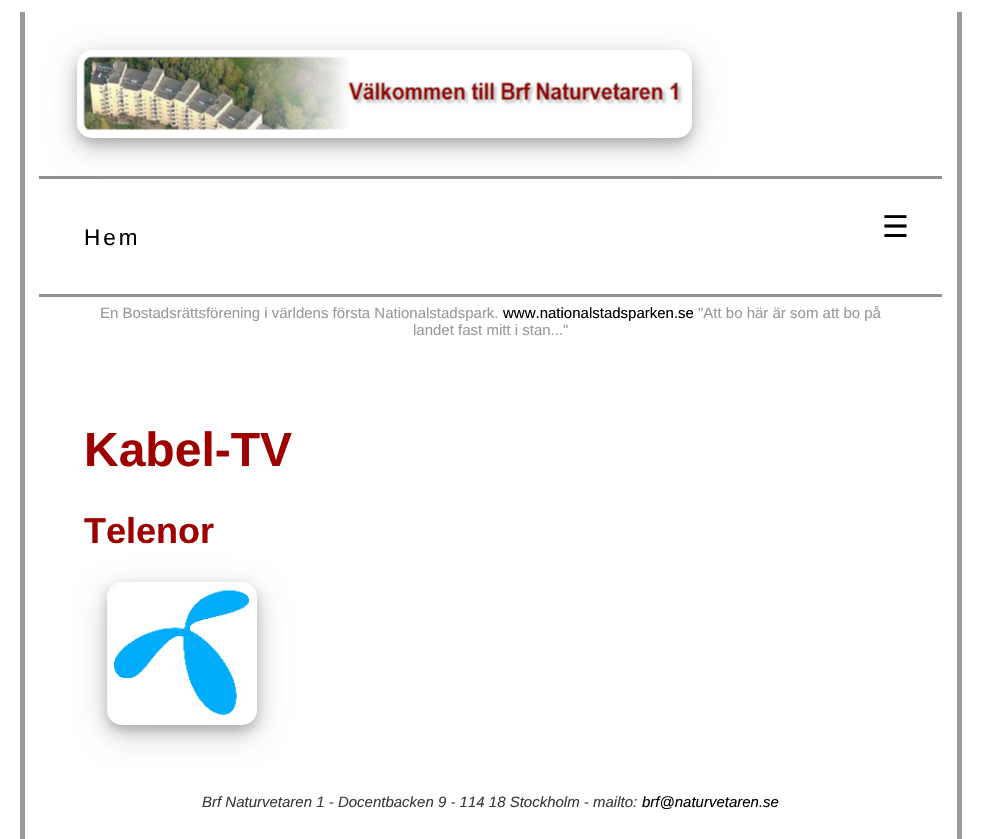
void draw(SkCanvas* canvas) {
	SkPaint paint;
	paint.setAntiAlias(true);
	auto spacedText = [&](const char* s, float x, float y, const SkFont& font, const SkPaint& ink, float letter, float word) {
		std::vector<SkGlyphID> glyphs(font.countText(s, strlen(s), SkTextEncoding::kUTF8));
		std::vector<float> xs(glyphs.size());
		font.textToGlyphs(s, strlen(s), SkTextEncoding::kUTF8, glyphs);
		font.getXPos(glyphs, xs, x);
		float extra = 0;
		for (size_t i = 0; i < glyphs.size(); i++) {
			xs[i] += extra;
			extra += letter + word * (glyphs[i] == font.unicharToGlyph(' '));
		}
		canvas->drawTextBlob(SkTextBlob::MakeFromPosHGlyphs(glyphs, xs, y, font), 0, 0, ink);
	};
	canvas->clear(0xffffffff);
	paint.setColor(0xff999999);
	canvas->drawRect(SkRect::MakeXYWH(957, 12, 5, 827), paint);
	canvas->drawRect(SkRect::MakeXYWH(20, 12, 5, 827), paint);
	paint.setColor(0x30000000);
	paint.setMaskFilter(SkMaskFilter::MakeBlur(kNormal_SkBlurStyle, 15));
	canvas->drawRoundRect(SkRect::MakeXYWH(77, 59, 615, 88), 15, 15, paint);
	paint.setMaskFilter(nullptr);
	paint.setColor(0x33000000);
	paint.setMaskFilter(SkMaskFilter::MakeBlur(kNormal_SkBlurStyle, 6));
	canvas->drawRoundRect(SkRect::MakeXYWH(77, 56, 615, 88), 15, 15, paint);
	paint.setMaskFilter(nullptr);
	paint.setColor(0xffffffff);
	canvas->drawRoundRect(SkRect::MakeXYWH(77, 50, 615, 88), 15, 15, paint);
	canvas->drawImageRect(SkImages::DeferredFromEncodedData(SkData::MakeFromFileName("img1.png")), SkRect::MakeXYWH(83, 56, 600, 75), SkSamplingOptions());
	paint.setColor(0xff909090);
	canvas->drawRect(SkRect::MakeXYWH(39, 176, 903, 3), paint);
	canvas->drawRect(SkRect::MakeXYWH(39, 294, 903, 3), paint);
	SkFont f1(fontMgr->matchFamilyStyle("Liberation Sans", SkFontStyle::Normal()), 22.5);
	f1.setSubpixel(true);
	paint.setColor(0xff000000);
	spacedText("Hem", 84, 245, f1, paint, 3, 0);
	SkFont f2(fontMgr->matchFamilyStyle("DejaVu Sans", SkFontStyle::Normal()), 30);
	f2.setSubpixel(true);
	spacedText("☰", 882, 237, f2, paint, 3, 0);
	SkFont f3(fontMgr->matchFamilyStyle("Liberation Sans", SkFontStyle::Normal()), 15);
	f3.setSubpixel(true);
	paint.setColor(0xff999999);
	canvas->drawString("En Bostadsrättsförening i världens första Nationalstadspark.", 100, 318, f3, paint);
	paint.setColor(0xff000000);
	canvas->drawString("www.nationalstadsparken.se", 503, 318, f3, paint);
	paint.setColor(0xff999999);
	canvas->drawString("\"Att bo här är som att bo på", 698, 318, f3, paint);
	canvas->drawString("landet fast mitt i stan...\"", 413, 335, f3, paint);
	SkFont f4(fontMgr->matchFamilyStyle("Liberation Sans", SkFontStyle::Bold()), 48);
	f4.setSubpixel(true);
	paint.setColor(0xff9e0000);
	canvas->drawString("Kabel-TV", 84, 466, f4, paint);
	SkFont f5(fontMgr->matchFamilyStyle("Liberation Sans", SkFontStyle::Bold()), 36);
	f5.setSubpixel(true);
	canvas->drawString("Telenor", 84, 543, f5, paint);
	paint.setColor(0x30000000);
	paint.setMaskFilter(SkMaskFilter::MakeBlur(kNormal_SkBlurStyle, 15));
	canvas->drawRoundRect(SkRect::MakeXYWH(107, 591, 150, 143), 15, 15, paint);
	paint.setMaskFilter(nullptr);
	paint.setColor(0x33000000);
	paint.setMaskFilter(SkMaskFilter::MakeBlur(kNormal_SkBlurStyle, 6));
	canvas->drawRoundRect(SkRect::MakeXYWH(107, 588, 150, 143), 15, 15, paint);
	paint.setMaskFilter(nullptr);
	paint.setColor(0xffffffff);
	canvas->drawRoundRect(SkRect::MakeXYWH(107, 582, 150, 143), 15, 15, paint);
	canvas->drawImageRect(SkImages::DeferredFromEncodedData(SkData::MakeFromFileName("img2.png")), SkRect::MakeXYWH(114, 590, 135, 126), SkSamplingOptions());
	SkFont f6(fontMgr->matchFamilyStyle("Liberation Sans", SkFontStyle::Italic()), 15);
	f6.setSubpixel(true);
	paint.setColor(0xff3b3b3b);
	canvas->drawString("Brf Naturvetaren 1 - Docentbacken 9 - 114 18 Stockholm - mailto:", 202, 807, f6, paint);
	paint.setColor(0xff000000);
	canvas->drawString("brf@naturvetaren.se", 642, 807, f6, paint);
}
